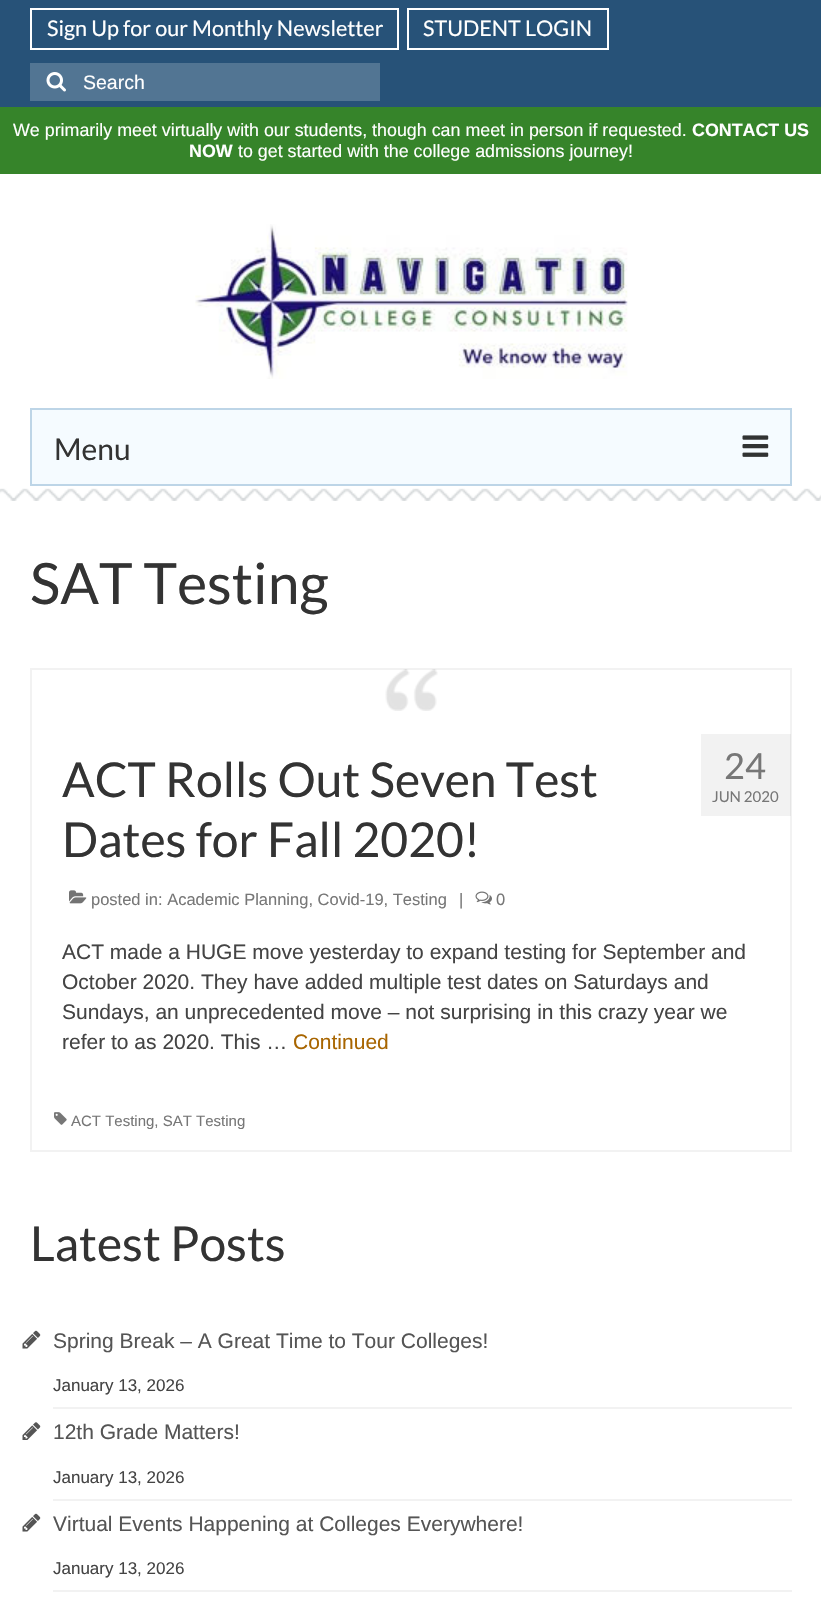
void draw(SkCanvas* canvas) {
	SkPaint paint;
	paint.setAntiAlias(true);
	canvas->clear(0xffffffff);
	canvas->drawImageRect(SkImages::DeferredFromEncodedData(SkData::MakeFromFileName("img1.png")), SkRect::MakeXYWH(0, 488, 821, 13), SkSamplingOptions());
	paint.setColor(0xff275278);
	canvas->drawRect(SkRect::MakeXYWH(0, 0, 821, 107), paint);
	paint.setStroke(true);
	paint.setStrokeWidth(2);
	paint.setColor(0xffffffff);
	canvas->drawRect(SkRect::MakeXYWH(31, 9, 367, 40), paint);
	SkFont f1(fontMgr->matchFamilyStyle("Lato", SkFontStyle::Normal()), 21.6);
	f1.setSubpixel(true);
	paint.setStroke(false);
	canvas->drawString("Sign Up for our Monthly Newsletter", 47, 36, f1, paint);
	paint.setStroke(true);
	canvas->drawRect(SkRect::MakeXYWH(408, 9, 200, 40), paint);
	paint.setStroke(false);
	canvas->drawString("STUDENT LOGIN", 423, 36, f1, paint);
	paint.setColor(0xff527593);
	canvas->drawRect(SkRect::MakeXYWH(30, 63, 350, 38), paint);
	canvas->drawImageRect(SkImages::DeferredFromEncodedData(SkData::MakeFromFileName("img2.png")), SkRect::MakeXYWH(46, 72, 20, 20), SkSamplingOptions());
	SkFont f2(fontMgr->matchFamilyStyle("Liberation Sans", SkFontStyle::Normal()), 19.5);
	f2.setSubpixel(true);
	paint.setColor(0xffffffff);
	canvas->drawString("Search", 83, 89, f2, paint);
	paint.setColor(0xff36842a);
	canvas->drawRect(SkRect::MakeXYWH(0, 107, 821, 67), paint);
	SkFont f3(fontMgr->matchFamilyStyle("Liberation Sans", SkFontStyle::Normal()), 17.85);
	f3.setSubpixel(true);
	paint.setColor(0xffffffff);
	canvas->drawString("We primarily meet virtually with our students, though can meet in person if requested.", 13, 136, f3, paint);
	SkFont f4(fontMgr->matchFamilyStyle("Liberation Sans", SkFontStyle::Bold()), 17.85);
	f4.setSubpixel(true);
	canvas->drawString("CONTACT US", 692, 136, f4, paint);
	canvas->drawString("NOW", 189, 157, f4, paint);
	canvas->drawString("to get started with the college admissions journey!", 238, 157, f3, paint);
	canvas->drawImageRect(SkImages::DeferredFromEncodedData(SkData::MakeFromFileName("img3.png")), SkRect::MakeXYWH(195, 224, 433, 155), SkSamplingOptions());
	paint.setColor(0xfff5fbff);
	canvas->drawRect(SkRect::MakeXYWH(31, 409, 760, 76), paint);
	paint.setStroke(true);
	paint.setColor(0xffbdd5e7);
	canvas->drawRect(SkRect::MakeXYWH(31, 409, 760, 76), paint);
	SkFont f5(fontMgr->matchFamilyStyle("Lato", SkFontStyle::Normal()), 30);
	f5.setSubpixel(true);
	paint.setStroke(false);
	paint.setColor(0xff333333);
	canvas->drawString("Menu", 54, 460, f5, paint);
	canvas->drawImageRect(SkImages::DeferredFromEncodedData(SkData::MakeFromFileName("img4.png")), SkRect::MakeXYWH(742, 435, 27, 22), SkSamplingOptions());
	SkFont f6(fontMgr->matchFamilyStyle("Lato", SkFontStyle::Normal()), 57);
	f6.setSubpixel(true);
	canvas->drawString("SAT Testing", 30, 604, f6, paint);
	paint.setStroke(true);
	paint.setColor(0xfff2f2f2);
	canvas->drawRect(SkRect::MakeXYWH(31, 669, 760, 482), paint);
	canvas->drawImageRect(SkImages::DeferredFromEncodedData(SkData::MakeFromFileName("img5.png")), SkRect::MakeXYWH(385, 669, 53, 42), SkSamplingOptions());
	SkFont f7(fontMgr->matchFamilyStyle("Lato", SkFontStyle::Normal()), 48);
	f7.setSubpixel(true);
	paint.setStroke(false);
	paint.setColor(0xff333333);
	canvas->drawString("ACT Rolls Out Seven Test", 62, 797, f7, paint);
	canvas->drawString("Dates for Fall 2020!", 62, 857, f7, paint);
	canvas->drawImageRect(SkImages::DeferredFromEncodedData(SkData::MakeFromFileName("img6.png")), SkRect::MakeXYWH(69, 890, 18, 14), SkSamplingOptions());
	SkFont f8(fontMgr->matchFamilyStyle("Liberation Sans", SkFontStyle::Normal()), 16.5);
	f8.setSubpixel(true);
	paint.setColor(0xff777777);
	canvas->drawString("posted in: Academic Planning, Covid-19, Testing", 91, 905, f8, paint);
	canvas->drawString("|", 459, 905, f8, paint);
	canvas->drawImageRect(SkImages::DeferredFromEncodedData(SkData::MakeFromFileName("img7.png")), SkRect::MakeXYWH(475, 891, 17, 14), SkSamplingOptions());
	canvas->drawString("0", 496, 905, f8, paint);
	paint.setColor(0x0d000000);
	canvas->drawRect(SkRect::MakeXYWH(701, 734, 90, 82), paint);
	SkFont f9(fontMgr->matchFamilyStyle("Lato", SkFontStyle::Normal()), 36);
	f9.setSubpixel(true);
	paint.setColor(0xff777777);
	canvas->drawString("24", 724, 779, f9, paint);
	SkFont f10(fontMgr->matchFamilyStyle("Lato", SkFontStyle::Normal()), 15);
	f10.setSubpixel(true);
	canvas->drawString("JUN 2020", 712, 802, f10, paint);
	SkFont f11(fontMgr->matchFamilyStyle("Liberation Sans", SkFontStyle::Normal()), 21);
	f11.setSubpixel(true);
	paint.setColor(0xff444444);
	canvas->drawString("ACT made a HUGE move yesterday to expand testing for September and", 62, 959, f11, paint);
	canvas->drawString("October 2020. They have added multiple test dates on Saturdays and", 62, 989, f11, paint);
	canvas->drawString("Sundays, an unprecedented move – not surprising in this crazy year we", 62, 1019, f11, paint);
	canvas->drawString("refer to as 2020. This …", 62, 1049, f11, paint);
	paint.setColor(0xffa86500);
	canvas->drawString("Continued", 293, 1049, f11, paint);
	canvas->drawImageRect(SkImages::DeferredFromEncodedData(SkData::MakeFromFileName("img8.png")), SkRect::MakeXYWH(54, 1112, 13, 13), SkSamplingOptions());
	SkFont f12(fontMgr->matchFamilyStyle("Liberation Sans", SkFontStyle::Normal()), 15);
	f12.setSubpixel(true);
	paint.setColor(0xff777777);
	canvas->drawString("ACT Testing, SAT Testing", 71, 1126, f12, paint);
	paint.setColor(0xff333333);
	canvas->drawString("Latest Posts", 30, 1261, f7, paint);
	paint.setColor(0xfff2f2f2);
	canvas->drawRect(SkRect::MakeXYWH(53, 1407, 739, 2), paint);
	canvas->drawImageRect(SkImages::DeferredFromEncodedData(SkData::MakeFromFileName("img9.png")), SkRect::MakeXYWH(22, 1330, 19, 19), SkSamplingOptions());
	paint.setColor(0xff555555);
	canvas->drawString("Spring Break – A Great Time to Tour Colleges!", 53, 1348, f11, paint);
	SkFont f13(fontMgr->matchFamilyStyle("Liberation Sans", SkFontStyle::Normal()), 17);
	f13.setSubpixel(true);
	paint.setColor(0xff444444);
	canvas->drawString("January 13, 2026", 53, 1391, f13, paint);
	paint.setColor(0xfff2f2f2);
	canvas->drawRect(SkRect::MakeXYWH(53, 1499, 739, 2), paint);
	canvas->drawImageRect(SkImages::DeferredFromEncodedData(SkData::MakeFromFileName("img10.png")), SkRect::MakeXYWH(22, 1422, 19, 18), SkSamplingOptions());
	paint.setColor(0xff555555);
	canvas->drawString("12th Grade Matters!", 53, 1439, f11, paint);
	paint.setColor(0xff444444);
	canvas->drawString("January 13, 2026", 53, 1483, f13, paint);
	paint.setColor(0xfff2f2f2);
	canvas->drawRect(SkRect::MakeXYWH(53, 1590, 739, 2), paint);
	canvas->drawImageRect(SkImages::DeferredFromEncodedData(SkData::MakeFromFileName("img9.png")), SkRect::MakeXYWH(22, 1513, 19, 19), SkSamplingOptions());
	paint.setColor(0xff555555);
	canvas->drawString("Virtual Events Happening at Colleges Everywhere!", 53, 1531, f11, paint);
	paint.setColor(0xff444444);
	canvas->drawString("January 13, 2026", 53, 1574, f13, paint);
}
